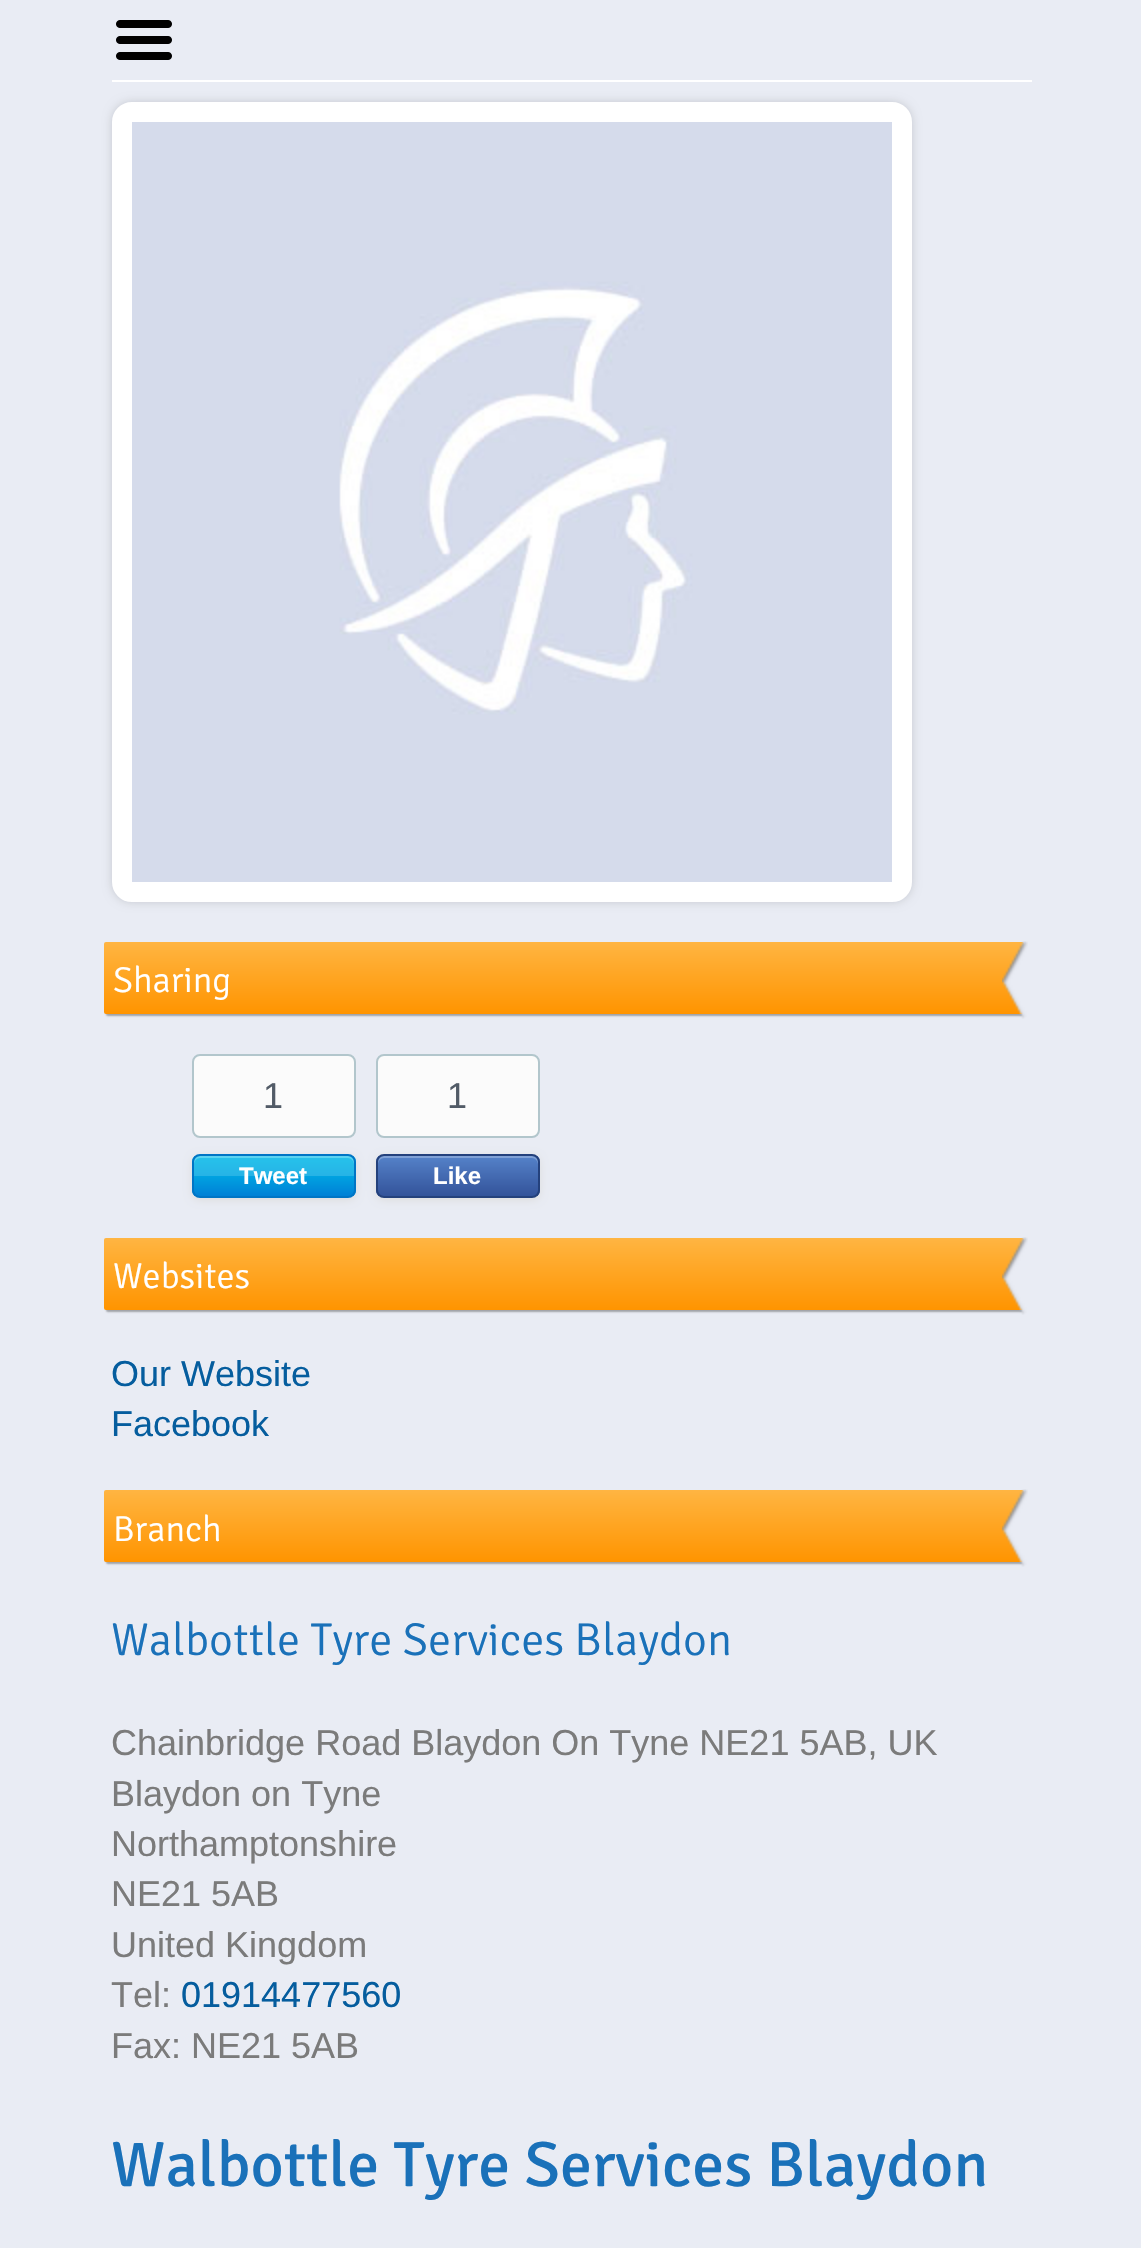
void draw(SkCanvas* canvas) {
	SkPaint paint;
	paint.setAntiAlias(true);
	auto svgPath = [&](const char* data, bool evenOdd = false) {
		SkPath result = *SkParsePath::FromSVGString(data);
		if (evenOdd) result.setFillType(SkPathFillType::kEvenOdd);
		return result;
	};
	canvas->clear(0xffe9ecf4);
	paint.setColor(0xffffffff);
	canvas->drawRect(SkRect::MakeXYWH(112, 80, 920, 2), paint);
	canvas->drawImageRect(SkImages::DeferredFromEncodedData(SkData::MakeFromFileName("img1.png")), SkRect::MakeXYWH(116, 20, 56, 40), SkSamplingOptions());
	paint.setColor(0x26000000);
	paint.setMaskFilter(SkMaskFilter::MakeBlur(kNormal_SkBlurStyle, 5));
	canvas->drawRoundRect(SkRect::MakeXYWH(112, 102, 800, 800), 20, 20, paint);
	paint.setMaskFilter(nullptr);
	paint.setStroke(true);
	paint.setStrokeWidth(20);
	paint.setColor(0xffffffff);
	canvas->drawRoundRect(SkRect::MakeXYWH(122, 112, 780, 780), 10, 10, paint);
	canvas->drawImageRect(SkImages::DeferredFromEncodedData(SkData::MakeFromFileName("img2.png")), SkRect::MakeXYWH(132, 122, 760, 760), SkSamplingOptions());
	paint.setStroke(false);
	paint.setColor(0x66323232);
	paint.setMaskFilter(SkMaskFilter::MakeBlur(kNormal_SkBlurStyle, 1));
	canvas->drawRoundRect(SkRect::MakeXYWH(106, 944, 920, 72), 2, 2, paint);
	paint.setMaskFilter(nullptr);
	{
		const SkColor colors[] = {0xffffb542, 0xffff9400};
		const float stops[] = {0, 1};
		const SkPoint ends[] = {{564, 942}, {564, 1014}};
		paint.setShader(SkGradientShader::MakeLinear(ends, colors, stops, 2, SkTileMode::kClamp));
		paint.setAlpha(255);
	}
	canvas->drawRoundRect(SkRect::MakeXYWH(104, 942, 920, 72), 2, 2, paint);
	SkFont f1(fontMgr->matchFamilyStyle("Signika", SkFontStyle(300, SkFontStyle::kNormal_Width, SkFontStyle::kUpright_Slant)), 36);
	f1.setSubpixel(true);
	paint.setShader(nullptr);
	paint.setColor(0xffffffff);
	canvas->drawString("Sharing", 113, 992, f1, paint);
	canvas->drawImageRect(SkImages::DeferredFromEncodedData(SkData::MakeFromFileName("img3.png")), SkRect::MakeXYWH(1002, 941, 26, 78), SkSamplingOptions());
	paint.setColor(0xfffbfbfb);
	canvas->drawRoundRect(SkRect::MakeXYWH(193, 1055, 162, 82), 7, 7, paint);
	paint.setStroke(true);
	paint.setStrokeWidth(2);
	paint.setColor(0xffb2c6cc);
	canvas->drawRoundRect(SkRect::MakeXYWH(193, 1055, 162, 82), 7, 7, paint);
	SkFont f2(fontMgr->matchFamilyStyle("Liberation Sans", SkFontStyle::Normal()), 36);
	f2.setSubpixel(true);
	paint.setStroke(false);
	paint.setColor(0xff525b67);
	canvas->drawString("1", 263, 1108, f2, paint);
	paint.setColor(0xffdddddd);
	paint.setMaskFilter(SkMaskFilter::MakeBlur(kNormal_SkBlurStyle, 4));
	canvas->drawRoundRect(SkRect::MakeXYWH(192, 1156, 164, 44), 8, 8, paint);
	paint.setMaskFilter(nullptr);
	canvas->save();
	canvas->clipPath(svgPath("M200 1154H348C352.5 1154 356 1157.5 356 1162V1190C356 1194.5 352.5 1198 348 1198H200C195.5 1198 192 1194.5 192 1190V1162C192 1157.5 195.5 1154 200 1154Z"), true);
	{
		const SkColor colors[] = {0xff26c3eb, 0xff26b3e6, 0xff00a2e1, 0xff0080d6};
		const float stops[] = {0, 0.5, 0.51, 1};
		const SkPoint ends[] = {{274, 1156}, {274, 1196}};
		paint.setShader(SkGradientShader::MakeLinear(ends, colors, stops, 4, SkTileMode::kClamp));
		paint.setAlpha(255);
	}
	canvas->drawRect(SkRect::MakeXYWH(192, 1156, 164, 40), paint);
	canvas->restore();
	paint.setShader(nullptr);
	paint.setColor(0xff5cd3f1);
	canvas->drawPath(svgPath("M200 1158H348C351 1158 354 1161 354 1164V1162C354 1159 351 1156 348 1156H200C197 1156 194 1159 194 1162V1164C194 1161 197 1158 200 1158Z"), paint);
	paint.setStroke(true);
	paint.setColor(0xff0075c5);
	canvas->drawRoundRect(SkRect::MakeXYWH(193, 1155, 162, 42), 7, 7, paint);
	SkFont f3(fontMgr->matchFamilyStyle("Liberation Sans", SkFontStyle::Bold()), 24);
	f3.setSubpixel(true);
	paint.setStroke(false);
	paint.setColor(0xffffffff);
	canvas->drawString("Tweet", 239, 1184, f3, paint);
	paint.setColor(0xfffbfbfb);
	canvas->drawRoundRect(SkRect::MakeXYWH(377, 1055, 162, 82), 7, 7, paint);
	paint.setStroke(true);
	paint.setColor(0xffb2c6cc);
	canvas->drawRoundRect(SkRect::MakeXYWH(377, 1055, 162, 82), 7, 7, paint);
	paint.setStroke(false);
	paint.setColor(0xff525b67);
	canvas->drawString("1", 447, 1108, f2, paint);
	paint.setColor(0xffdddddd);
	paint.setMaskFilter(SkMaskFilter::MakeBlur(kNormal_SkBlurStyle, 4));
	canvas->drawRoundRect(SkRect::MakeXYWH(376, 1156, 164, 44), 8, 8, paint);
	paint.setMaskFilter(nullptr);
	canvas->save();
	canvas->clipPath(svgPath("M384 1154H532C536.5 1154 540 1157.5 540 1162V1190C540 1194.5 536.5 1198 532 1198H384C379.5 1198 376 1194.5 376 1190V1162C376 1157.5 379.5 1154 384 1154Z"), true);
	{
		const SkColor colors[] = {0xff5582c9, 0xff33539a};
		const float stops[] = {0, 1};
		const SkPoint ends[] = {{458, 1156}, {458, 1196}};
		paint.setShader(SkGradientShader::MakeLinear(ends, colors, stops, 2, SkTileMode::kClamp));
		paint.setAlpha(255);
	}
	canvas->drawRect(SkRect::MakeXYWH(376, 1156, 164, 40), paint);
	canvas->restore();
	paint.setShader(nullptr);
	paint.setColor(0xff80a1d6);
	canvas->drawPath(svgPath("M384 1158H532C535 1158 538 1161 538 1164V1162C538 1159 535 1156 532 1156H384C381 1156 378 1159 378 1162V1164C378 1161 381 1158 384 1158Z"), paint);
	paint.setStroke(true);
	paint.setColor(0xff24417c);
	canvas->drawRoundRect(SkRect::MakeXYWH(377, 1155, 162, 42), 7, 7, paint);
	paint.setStroke(false);
	paint.setColor(0xffffffff);
	canvas->drawString("Like", 433, 1184, f3, paint);
	paint.setColor(0x66323232);
	paint.setMaskFilter(SkMaskFilter::MakeBlur(kNormal_SkBlurStyle, 1));
	canvas->drawRoundRect(SkRect::MakeXYWH(106, 1240, 920, 72), 2, 2, paint);
	paint.setMaskFilter(nullptr);
	{
		const SkColor colors[] = {0xffffb542, 0xffff9400};
		const float stops[] = {0, 1};
		const SkPoint ends[] = {{564, 1238}, {564, 1310}};
		paint.setShader(SkGradientShader::MakeLinear(ends, colors, stops, 2, SkTileMode::kClamp));
		paint.setAlpha(255);
	}
	canvas->drawRoundRect(SkRect::MakeXYWH(104, 1238, 920, 72), 2, 2, paint);
	paint.setShader(nullptr);
	paint.setColor(0xffffffff);
	canvas->drawString("Websites", 113, 1288, f1, paint);
	canvas->drawImageRect(SkImages::DeferredFromEncodedData(SkData::MakeFromFileName("img3.png")), SkRect::MakeXYWH(1002, 1237, 26, 78), SkSamplingOptions());
	paint.setColor(0xff055d9e);
	canvas->drawString("Our Website", 111, 1386, f2, paint);
	canvas->drawString("Facebook", 111, 1436, f2, paint);
	paint.setColor(0x66323232);
	paint.setMaskFilter(SkMaskFilter::MakeBlur(kNormal_SkBlurStyle, 1));
	canvas->drawRoundRect(SkRect::MakeXYWH(106, 1492, 920, 72), 2, 2, paint);
	paint.setMaskFilter(nullptr);
	{
		const SkColor colors[] = {0xffffb542, 0xffff9400};
		const float stops[] = {0, 1};
		const SkPoint ends[] = {{564, 1490}, {564, 1562}};
		paint.setShader(SkGradientShader::MakeLinear(ends, colors, stops, 2, SkTileMode::kClamp));
		paint.setAlpha(255);
	}
	canvas->drawRoundRect(SkRect::MakeXYWH(104, 1490, 920, 72), 2, 2, paint);
	paint.setShader(nullptr);
	paint.setColor(0xffffffff);
	canvas->drawString("Branch", 113, 1541, f1, paint);
	canvas->drawImageRect(SkImages::DeferredFromEncodedData(SkData::MakeFromFileName("img3.png")), SkRect::MakeXYWH(1002, 1489, 26, 78), SkSamplingOptions());
	SkFont f4(fontMgr->matchFamilyStyle("Signika", SkFontStyle(300, SkFontStyle::kNormal_Width, SkFontStyle::kUpright_Slant)), 46);
	f4.setSubpixel(true);
	paint.setColor(0xff1a71b9);
	canvas->drawString("Walbottle Tyre Services Blaydon", 111, 1655, f4, paint);
	paint.setColor(0xff7b7b7b);
	canvas->drawString("Chainbridge Road Blaydon On Tyne NE21 5AB, UK", 111, 1755, f2, paint);
	canvas->drawString("Blaydon on Tyne", 111, 1806, f2, paint);
	canvas->drawString("Northamptonshire", 111, 1856, f2, paint);
	canvas->drawString("NE21 5AB", 111, 1906, f2, paint);
	canvas->drawString("United Kingdom", 111, 1957, f2, paint);
	canvas->drawString("Tel:", 111, 2007, f2, paint);
	paint.setColor(0xff055d9e);
	canvas->drawString("01914477560", 181, 2007, f2, paint);
	paint.setColor(0xff7b7b7b);
	canvas->drawString("Fax: NE21 5AB", 111, 2058, f2, paint);
	SkFont f5(fontMgr->matchFamilyStyle("Signika", SkFontStyle::Normal()), 64);
	f5.setSubpixel(true);
	paint.setColor(0xff1a71b9);
	canvas->drawString("Walbottle Tyre Services Blaydon", 111, 2186, f5, paint);
}
